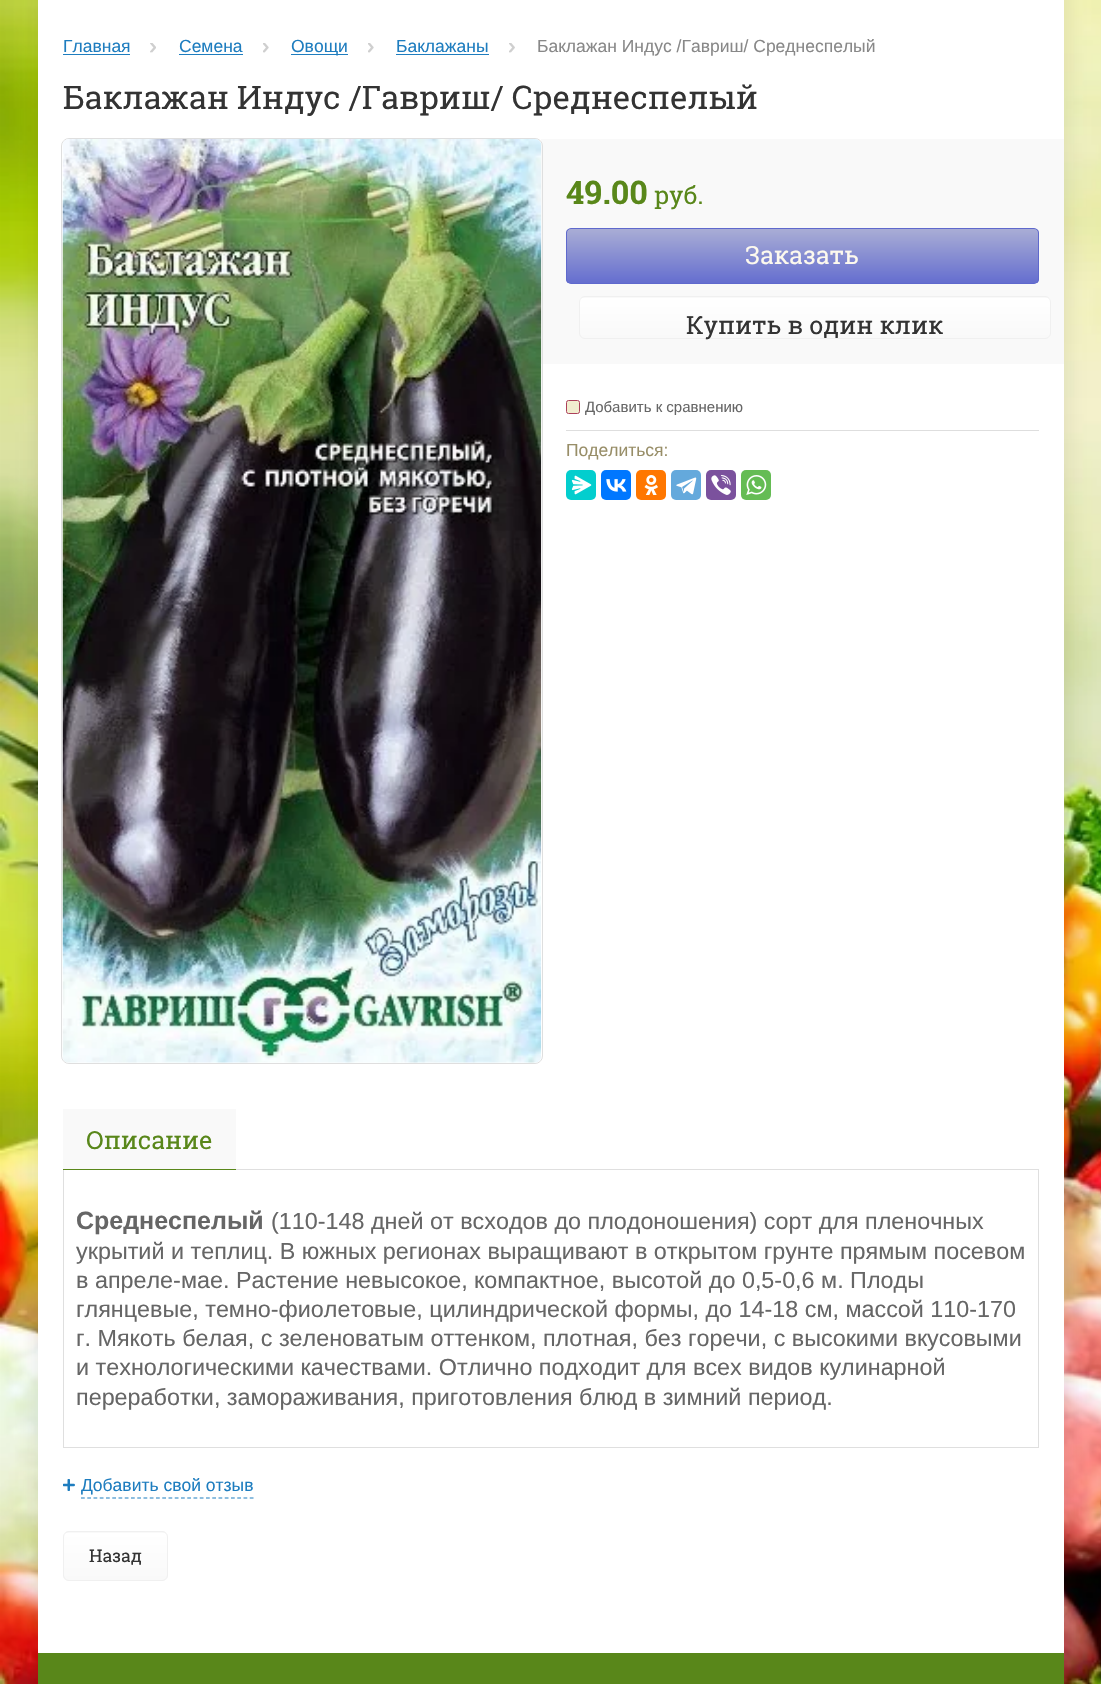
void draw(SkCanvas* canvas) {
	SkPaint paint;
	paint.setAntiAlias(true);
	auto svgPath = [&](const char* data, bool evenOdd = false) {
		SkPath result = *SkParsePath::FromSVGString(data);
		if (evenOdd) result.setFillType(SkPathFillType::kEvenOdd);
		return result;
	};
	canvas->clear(0xffffffff);
	canvas->drawImageRect(SkImages::DeferredFromEncodedData(SkData::MakeFromFileName("img1.png")), SkRect::MakeXYWH(0, 0, 1101, 1684), SkSamplingOptions());
	paint.setColor(0x1a000000);
	paint.setMaskFilter(SkMaskFilter::MakeBlur(kNormal_SkBlurStyle, 12.5));
	canvas->drawRect(SkRect::MakeXYWH(38, -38, 1026, 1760), paint);
	paint.setMaskFilter(nullptr);
	paint.setColor(0xffffffff);
	canvas->drawRect(SkRect::MakeXYWH(38, 0, 1026, 1653), paint);
	SkFont f1(fontMgr->matchFamilyStyle("Liberation Sans", SkFontStyle::Normal()), 17.5);
	f1.setSubpixel(true);
	paint.setColor(0xff1e7dbf);
	canvas->drawString("Главная", 63, 52, f1, paint);
	canvas->drawRect(SkRect::MakeXYWH(63, 54, 67, 1), paint);
	canvas->drawImageRect(SkImages::DeferredFromEncodedData(SkData::MakeFromFileName("img2.png")), SkRect::MakeXYWH(150, 43, 6, 10), SkSamplingOptions());
	canvas->drawString("Семена", 179, 52, f1, paint);
	canvas->drawRect(SkRect::MakeXYWH(179, 54, 64, 1), paint);
	canvas->drawImageRect(SkImages::DeferredFromEncodedData(SkData::MakeFromFileName("img3.png")), SkRect::MakeXYWH(263, 43, 6, 10), SkSamplingOptions());
	canvas->drawRect(SkRect::MakeXYWH(291, 54, 57, 1), paint);
	canvas->drawString("Овощи", 291, 52, f1, paint);
	canvas->drawImageRect(SkImages::DeferredFromEncodedData(SkData::MakeFromFileName("img3.png")), SkRect::MakeXYWH(368, 43, 6, 10), SkSamplingOptions());
	canvas->drawString("Баклажаны", 396, 52, f1, paint);
	canvas->drawRect(SkRect::MakeXYWH(396, 54, 93, 1), paint);
	canvas->drawImageRect(SkImages::DeferredFromEncodedData(SkData::MakeFromFileName("img4.png")), SkRect::MakeXYWH(509, 43, 6, 10), SkSamplingOptions());
	paint.setColor(0xff888888);
	canvas->drawString("Баклажан Индус /Гавриш/ Среднеспелый", 537, 52, f1, paint);
	SkFont f2(fontMgr->matchFamilyStyle("Roboto Slab", SkFontStyle::Normal()), 32.5);
	f2.setSubpixel(true);
	paint.setColor(0xff333333);
	canvas->drawString("Баклажан Индус /Гавриш/ Среднеспелый", 63, 109, f2, paint);
	paint.setColor(0xfff9f9f9);
	canvas->drawRect(SkRect::MakeXYWH(541, 139, 523, 225), paint);
	paint.setStroke(true);
	paint.setStrokeWidth(1);
	paint.setColor(0xffdfdfdf);
	canvas->drawRoundRect(SkRect::MakeXYWH(61.5, 138.5, 481, 925), 7.5, 7.5, paint);
	canvas->drawImageRect(SkImages::DeferredFromEncodedData(SkData::MakeFromFileName("img5.png")), SkRect::MakeXYWH(62, 139, 480, 924), SkSamplingOptions());
	SkFont f3(fontMgr->matchFamilyStyle("Roboto Slab", SkFontStyle::Bold()), 32.5);
	f3.setSubpixel(true);
	paint.setStroke(false);
	paint.setColor(0xff59871a);
	canvas->drawString("49.00", 566, 204, f3, paint);
	SkFont f4(fontMgr->matchFamilyStyle("Roboto Slab", SkFontStyle::Normal()), 25);
	f4.setSubpixel(true);
	canvas->drawString("руб.", 654, 204, f4, paint);
	canvas->save();
	canvas->clipPath(svgPath("M571 228H1034C1037 228 1039 230 1039 233V279C1039 282 1037 284 1034 284H571C568 284 566 282 566 279V233C566 230 568 228 571 228Z"), true);
	{
		const SkColor colors[] = {0xffa9add5, 0xff656ecf};
		const float stops[] = {0, 1};
		const SkPoint ends[] = {{803, 229}, {803, 283}};
		paint.setShader(SkGradientShader::MakeLinear(ends, colors, stops, 2, SkTileMode::kClamp));
		paint.setAlpha(255);
	}
	canvas->drawRect(SkRect::MakeXYWH(566, 229, 473, 54), paint);
	canvas->restore();
	paint.setStroke(true);
	paint.setShader(nullptr);
	paint.setColor(0xff5f69cd);
	canvas->drawRoundRect(SkRect::MakeXYWH(566.5, 228.5, 472, 55), 4.5, 4.5, paint);
	paint.setStroke(false);
	paint.setColor(0xfffdf9ee);
	canvas->drawString("Заказать", 745, 264, f4, paint);
	canvas->save();
	canvas->clipPath(svgPath("M585 296H1045C1048.5 296 1051 298.5 1051 302V333C1051 336.5 1048.5 339 1045 339H585C581.5 339 579 336.5 579 333V302C579 298.5 581.5 296 585 296Z"), true);
	{
		const SkColor colors[] = {0xffffffff, 0xfff9f9f9};
		const float stops[] = {0, 1};
		const SkPoint ends[] = {{815, 297}, {815, 338}};
		paint.setShader(SkGradientShader::MakeLinear(ends, colors, stops, 2, SkTileMode::kClamp));
		paint.setAlpha(255);
	}
	canvas->drawRect(SkRect::MakeXYWH(579, 298, 472, 40), paint);
	canvas->restore();
	paint.setStroke(true);
	paint.setShader(nullptr);
	paint.setColor(0xfff0f0f0);
	canvas->drawRoundRect(SkRect::MakeXYWH(579.5, 296.5, 471, 42), 5.5, 5.5, paint);
	paint.setStroke(false);
	paint.setColor(0xff333333);
	canvas->drawString("Купить в один клик", 686, 334, f4, paint);
	paint.setColor(0xffdedede);
	canvas->drawRect(SkRect::MakeXYWH(566, 430, 473, 1), paint);
	paint.setColor(0xfff1edcf);
	canvas->drawRoundRect(SkRect::MakeXYWH(566.5, 400.5, 13, 13), 2, 2, paint);
	paint.setStroke(true);
	paint.setColor(0xffac405a);
	canvas->drawRoundRect(SkRect::MakeXYWH(566.5, 400.5, 13, 13), 2, 2, paint);
	SkFont f5(fontMgr->matchFamilyStyle("Liberation Sans", SkFontStyle::Normal()), 15);
	f5.setSubpixel(true);
	paint.setStroke(false);
	paint.setColor(0xff666666);
	canvas->drawString("Добавить к сравнению", 585, 412, f5, paint);
	paint.setColor(0xff988e68);
	canvas->drawString("Поделиться:", 566, 456, f1, paint);
	paint.setColor(0xff03cece);
	canvas->drawRoundRect(SkRect::MakeXYWH(566, 470, 30, 30), 5, 5, paint);
	canvas->drawImageRect(SkImages::DeferredFromEncodedData(SkData::MakeFromFileName("img6.png")), SkRect::MakeXYWH(571, 475, 21, 20), SkSamplingOptions());
	paint.setColor(0xff0077ff);
	canvas->drawRoundRect(SkRect::MakeXYWH(601, 470, 30, 30), 5, 5, paint);
	canvas->drawImageRect(SkImages::DeferredFromEncodedData(SkData::MakeFromFileName("img7.png")), SkRect::MakeXYWH(606, 479, 21, 13), SkSamplingOptions());
	paint.setColor(0xffff7700);
	canvas->drawRoundRect(SkRect::MakeXYWH(636, 470, 30, 30), 5, 5, paint);
	canvas->drawImageRect(SkImages::DeferredFromEncodedData(SkData::MakeFromFileName("img8.png")), SkRect::MakeXYWH(644, 475, 14, 20), SkSamplingOptions());
	paint.setColor(0xff64a9dc);
	canvas->drawRoundRect(SkRect::MakeXYWH(671, 470, 30, 30), 5, 5, paint);
	canvas->drawImageRect(SkImages::DeferredFromEncodedData(SkData::MakeFromFileName("img9.png")), SkRect::MakeXYWH(676, 477, 21, 18), SkSamplingOptions());
	paint.setColor(0xff7b519d);
	canvas->drawRoundRect(SkRect::MakeXYWH(706, 470, 30, 30), 5, 5, paint);
	canvas->drawImageRect(SkImages::DeferredFromEncodedData(SkData::MakeFromFileName("img10.png")), SkRect::MakeXYWH(711, 475, 20, 20), SkSamplingOptions());
	paint.setColor(0xff65bc54);
	canvas->drawRoundRect(SkRect::MakeXYWH(741, 470, 30, 30), 5, 5, paint);
	canvas->drawImageRect(SkImages::DeferredFromEncodedData(SkData::MakeFromFileName("img11.png")), SkRect::MakeXYWH(746, 475, 21, 20), SkSamplingOptions());
	paint.setColor(0xfff9f9f9);
	canvas->drawRect(SkRect::MakeXYWH(63, 1109, 173, 60), paint);
	paint.setStroke(true);
	paint.setColor(0xffdfdfdf);
	canvas->drawRect(SkRect::MakeXYWH(63.5, 1169.5, 975, 278), paint);
	paint.setStroke(false);
	paint.setColor(0xff59871a);
	canvas->drawRect(SkRect::MakeXYWH(63, 1169, 173, 1), paint);
	canvas->drawString("Описание", 86, 1149, f4, paint);
	SkFont f6(fontMgr->matchFamilyStyle("Liberation Sans", SkFontStyle::Bold()), 25);
	f6.setSubpixel(true);
	paint.setColor(0xff666666);
	canvas->drawString("Среднеспелый", 76, 1229, f6, paint);
	SkFont f7(fontMgr->matchFamilyStyle("Liberation Sans", SkFontStyle::Normal()), 23.35);
	f7.setSubpixel(true);
	canvas->drawString("(110-148 дней от всходов до плодоношения) сорт для пленочных", 271, 1229, f7, paint);
	canvas->drawString("укрытий и теплиц. В южных регионах выращивают в открытом грунте прямым посевом", 76, 1259, f7, paint);
	canvas->drawString("в апреле-мае. Растение невысокое, компактное, высотой до 0,5-0,6 м. Плоды", 76, 1288, f7, paint);
	canvas->drawString("глянцевые, темно-фиолетовые, цилиндрической формы, до 14-18 см, массой 110-170", 76, 1317, f7, paint);
	canvas->drawString("г. Мякоть белая, с зеленоватым оттенком, плотная, без горечи, с высокими вкусовыми", 76, 1346, f7, paint);
	canvas->drawString("и технологическими качествами. Отлично подходит для всех видов кулинарной", 76, 1375, f7, paint);
	canvas->drawString("переработки, замораживания, приготовления блюд в зимний период.", 76, 1405, f7, paint);
	paint.setStroke(true);
	paint.setStrokeWidth(1.2);
	paint.setColor(0xff1e7dbf);
	paint.setPathEffect(SkDashPathEffect::Make({{3.75f, 2.5f}}, 0));
	canvas->drawPath(svgPath("M81 1498H254"), paint);
	paint.setPathEffect(nullptr);
	canvas->drawImageRect(SkImages::DeferredFromEncodedData(SkData::MakeFromFileName("img12.png")), SkRect::MakeXYWH(63, 1479, 12, 12), SkSamplingOptions());
	paint.setStroke(false);
	canvas->drawString("Добавить свой отзыв", 81, 1491, f1, paint);
	paint.setColor(0xfff9f9f9);
	canvas->drawRoundRect(SkRect::MakeXYWH(63, 1531, 105, 50), 6, 6, paint);
	canvas->save();
	canvas->clipPath(svgPath("M69 1531H162C165.5 1531 168 1533.5 168 1537V1575C168 1578.5 165.5 1581 162 1581H69C65.5 1581 63 1578.5 63 1575V1537C63 1533.5 65.5 1531 69 1531Z"), true);
	{
		const SkColor colors[] = {0xffffffff, 0xfff9f9f9};
		const float stops[] = {0, 1};
		const SkPoint ends[] = {{115, 1533}, {115, 1580}};
		paint.setShader(SkGradientShader::MakeLinear(ends, colors, stops, 2, SkTileMode::kClamp));
		paint.setAlpha(255);
	}
	canvas->drawRect(SkRect::MakeXYWH(63, 1533, 105, 47), paint);
	canvas->restore();
	paint.setStroke(true);
	paint.setStrokeWidth(1);
	paint.setShader(nullptr);
	paint.setColor(0xfff0f0f0);
	canvas->drawRoundRect(SkRect::MakeXYWH(63.5, 1531.5, 104, 49), 5.5, 5.5, paint);
	SkFont f8(fontMgr->matchFamilyStyle("Roboto Slab", SkFontStyle::Normal()), 17.5);
	f8.setSubpixel(true);
	paint.setStroke(false);
	paint.setColor(0xff333333);
	canvas->drawString("Назад", 89, 1562, f8, paint);
	paint.setColor(0xff59871a);
	canvas->drawRect(SkRect::MakeXYWH(38, 1653, 1026, 31), paint);
}
